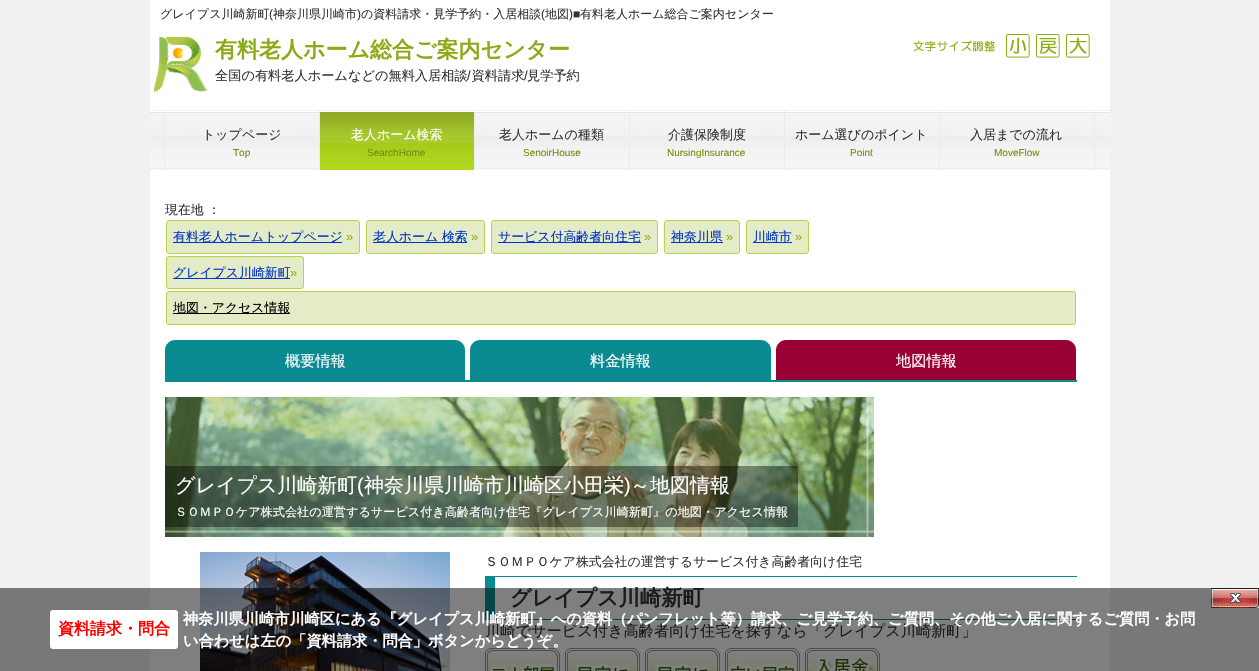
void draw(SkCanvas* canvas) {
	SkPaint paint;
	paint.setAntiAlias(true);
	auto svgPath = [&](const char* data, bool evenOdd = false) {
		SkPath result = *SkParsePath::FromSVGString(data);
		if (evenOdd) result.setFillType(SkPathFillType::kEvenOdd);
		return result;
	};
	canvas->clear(0xfff1f1f1);
	paint.setColor(0xffffffff);
	canvas->drawRect(SkRect::MakeXYWH(150, 0, 960, 671), paint);
	SkFont f1(fontMgr->matchFamilyStyle("WenQuanYi Zen Hei", SkFontStyle(500, SkFontStyle::kNormal_Width, SkFontStyle::kUpright_Slant)), 12);
	f1.setSubpixel(true);
	paint.setColor(0xff333333);
	canvas->drawString("グレイプス川崎新町", 160, 18, f1, paint);
	SkFont f2(fontMgr->matchFamilyStyle("Liberation Sans", SkFontStyle::Normal()), 12);
	f2.setSubpixel(true);
	canvas->drawString("(", 269, 18, f2, paint);
	canvas->drawString("神奈川県川崎市", 273, 18, f1, paint);
	canvas->drawString(")", 357, 18, f2, paint);
	canvas->drawString("の資料請求・見学予約・入居相談", 361, 18, f1, paint);
	canvas->drawString("(", 541, 18, f2, paint);
	canvas->drawString("地図", 545, 18, f1, paint);
	canvas->drawString(")■", 569, 18, f2, paint);
	canvas->drawString("有料老人ホーム総合ご案内センター", 580, 18, f1, paint);
	canvas->drawImageRect(SkImages::DeferredFromEncodedData(SkData::MakeFromFileName("img1.png")), SkRect::MakeXYWH(154, 37, 54, 55), SkSamplingOptions());
	SkFont f3(fontMgr->matchFamilyStyle("WenQuanYi Zen Hei", SkFontStyle::Bold()), 22);
	f3.setSubpixel(true);
	paint.setColor(0xff8aaa16);
	canvas->drawString("有料老人ホーム総合ご案内センター", 215, 57, f3, paint);
	SkFont f4(fontMgr->matchFamilyStyle("WenQuanYi Zen Hei", SkFontStyle(500, SkFontStyle::kNormal_Width, SkFontStyle::kUpright_Slant)), 13.2);
	f4.setSubpixel(true);
	paint.setColor(0xff333333);
	canvas->drawString("全国の有料老人ホームなどの無料入居相談 資料請求", 215, 80, f4, paint);
	SkFont f5(fontMgr->matchFamilyStyle("Liberation Sans", SkFontStyle::Normal()), 13.2);
	f5.setSubpixel(true);
	canvas->drawString("/", 524, 80, f5, paint);
	canvas->drawString("見学予約", 527, 80, f4, paint);
	canvas->drawString("/", 467, 80, f5, paint);
	canvas->drawImageRect(SkImages::DeferredFromEncodedData(SkData::MakeFromFileName("img2.png")), SkRect::MakeXYWH(913, 40, 82, 12), SkSamplingOptions());
	canvas->drawImageRect(SkImages::DeferredFromEncodedData(SkData::MakeFromFileName("img3.png")), SkRect::MakeXYWH(1006, 34, 24, 24), SkSamplingOptions());
	canvas->drawImageRect(SkImages::DeferredFromEncodedData(SkData::MakeFromFileName("img4.png")), SkRect::MakeXYWH(1036, 34, 24, 24), SkSamplingOptions());
	canvas->drawImageRect(SkImages::DeferredFromEncodedData(SkData::MakeFromFileName("img5.png")), SkRect::MakeXYWH(1066, 34, 24, 24), SkSamplingOptions());
	canvas->drawImageRect(SkImages::DeferredFromEncodedData(SkData::MakeFromFileName("img6.png")), SkRect::MakeXYWH(150, 110, 960, 60), SkSamplingOptions());
	paint.setColor(0xffebebeb);
	canvas->drawRect(SkRect::MakeXYWH(164, 110, 1, 60), paint);
	SkFont f6(fontMgr->matchFamilyStyle("WenQuanYi Zen Hei", SkFontStyle(500, SkFontStyle::kNormal_Width, SkFontStyle::kUpright_Slant)), 13);
	f6.setSubpixel(true);
	paint.setColor(0xff333333);
	canvas->drawString("トップページ", 202, 139, f6, paint);
	SkFont f7(fontMgr->matchFamilyStyle("Liberation Sans", SkFontStyle::Normal()), 10);
	f7.setSubpixel(true);
	paint.setColor(0xff708c0c);
	canvas->drawString("Top", 233, 156, f7, paint);
	canvas->drawImageRect(SkImages::DeferredFromEncodedData(SkData::MakeFromFileName("img7.png")), SkRect::MakeXYWH(320, 112, 154, 58), SkSamplingOptions());
	paint.setColor(0xffebebeb);
	canvas->drawRect(SkRect::MakeXYWH(319, 110, 1, 60), paint);
	paint.setColor(0xffffffff);
	canvas->drawString("老人ホーム検索", 351, 139, f6, paint);
	paint.setColor(0xff708c0c);
	canvas->drawString("SearchHome", 367, 156, f7, paint);
	paint.setColor(0xffebebeb);
	canvas->drawRect(SkRect::MakeXYWH(474, 110, 1, 60), paint);
	paint.setColor(0xff333333);
	canvas->drawString("老人ホームの種類", 499, 139, f6, paint);
	paint.setColor(0xff708c0c);
	canvas->drawString("SenoirHouse", 523, 156, f7, paint);
	paint.setColor(0xffebebeb);
	canvas->drawRect(SkRect::MakeXYWH(629, 110, 1, 60), paint);
	paint.setColor(0xff333333);
	canvas->drawString("介護保険制度", 668, 139, f6, paint);
	paint.setColor(0xff708c0c);
	canvas->drawString("NursingInsurance", 667, 156, f7, paint);
	paint.setColor(0xffebebeb);
	canvas->drawRect(SkRect::MakeXYWH(784, 110, 1, 60), paint);
	paint.setColor(0xff333333);
	canvas->drawString("ホーム選びのポイント", 795, 139, f6, paint);
	paint.setColor(0xff708c0c);
	canvas->drawString("Point", 850, 156, f7, paint);
	paint.setColor(0xffebebeb);
	canvas->drawRect(SkRect::MakeXYWH(1094, 110, 1, 60), paint);
	canvas->drawRect(SkRect::MakeXYWH(939, 110, 1, 60), paint);
	paint.setColor(0xff333333);
	canvas->drawString("入居までの流れ", 970, 139, f6, paint);
	paint.setColor(0xff708c0c);
	canvas->drawString("MoveFlow", 994, 156, f7, paint);
	SkFont f8(fontMgr->matchFamilyStyle("WenQuanYi Zen Hei", SkFontStyle(500, SkFontStyle::kNormal_Width, SkFontStyle::kUpright_Slant)), 12.9);
	f8.setSubpixel(true);
	paint.setColor(0xff333333);
	canvas->drawString("現在地 ：", 165, 214, f8, paint);
	paint.setColor(0xffe4ebc7);
	canvas->drawRoundRect(SkRect::MakeXYWH(166.5, 220.5, 193, 33), 2.5, 2.5, paint);
	paint.setStroke(true);
	paint.setStrokeWidth(1);
	paint.setColor(0xffb7d349);
	canvas->drawRoundRect(SkRect::MakeXYWH(166.5, 220.5, 193, 33), 2.5, 2.5, paint);
	paint.setStroke(false);
	paint.setColor(0xff0033cc);
	canvas->drawRect(SkRect::MakeXYWH(173, 242, 169, 1), paint);
	canvas->drawString("有料老人ホームトップページ", 173, 241, f8, paint);
	SkFont f9(fontMgr->matchFamilyStyle("Liberation Sans", SkFontStyle::Normal()), 12.9);
	f9.setSubpixel(true);
	paint.setColor(0xff8aaa16);
	canvas->drawString("»", 346, 241, f9, paint);
	paint.setColor(0xffe4ebc7);
	canvas->drawRoundRect(SkRect::MakeXYWH(366.5, 220.5, 118, 33), 2.5, 2.5, paint);
	paint.setStroke(true);
	paint.setColor(0xffb7d349);
	canvas->drawRoundRect(SkRect::MakeXYWH(366.5, 220.5, 118, 33), 2.5, 2.5, paint);
	paint.setStroke(false);
	paint.setColor(0xff0033cc);
	canvas->drawRect(SkRect::MakeXYWH(373, 242, 94, 1), paint);
	canvas->drawString("老人ホーム 検索", 373, 241, f8, paint);
	paint.setColor(0xff8aaa16);
	canvas->drawString("»", 471, 241, f9, paint);
	paint.setColor(0xffe4ebc7);
	canvas->drawRoundRect(SkRect::MakeXYWH(491.5, 220.5, 166, 33), 2.5, 2.5, paint);
	paint.setStroke(true);
	paint.setColor(0xffb7d349);
	canvas->drawRoundRect(SkRect::MakeXYWH(491.5, 220.5, 166, 33), 2.5, 2.5, paint);
	paint.setStroke(false);
	paint.setColor(0xff0033cc);
	canvas->drawRect(SkRect::MakeXYWH(498, 242, 143, 1), paint);
	canvas->drawString("サービス付高齢者向住宅", 498, 241, f8, paint);
	paint.setColor(0xff8aaa16);
	canvas->drawString("»", 644, 241, f9, paint);
	paint.setColor(0xffe4ebc7);
	canvas->drawRoundRect(SkRect::MakeXYWH(664.5, 220.5, 75, 33), 2.5, 2.5, paint);
	paint.setStroke(true);
	paint.setColor(0xffb7d349);
	canvas->drawRoundRect(SkRect::MakeXYWH(664.5, 220.5, 75, 33), 2.5, 2.5, paint);
	paint.setStroke(false);
	paint.setColor(0xff0033cc);
	canvas->drawRect(SkRect::MakeXYWH(671, 242, 52, 1), paint);
	canvas->drawString("神奈川県", 671, 241, f8, paint);
	paint.setColor(0xff8aaa16);
	canvas->drawString("»", 726, 241, f9, paint);
	paint.setColor(0xffe4ebc7);
	canvas->drawRoundRect(SkRect::MakeXYWH(746.5, 220.5, 62, 33), 2.5, 2.5, paint);
	paint.setStroke(true);
	paint.setColor(0xffb7d349);
	canvas->drawRoundRect(SkRect::MakeXYWH(746.5, 220.5, 62, 33), 2.5, 2.5, paint);
	paint.setStroke(false);
	paint.setColor(0xff0033cc);
	canvas->drawRect(SkRect::MakeXYWH(753, 242, 39, 1), paint);
	canvas->drawString("川崎市", 753, 241, f8, paint);
	paint.setColor(0xff8aaa16);
	canvas->drawString("»", 795, 241, f9, paint);
	paint.setColor(0xffe4ebc7);
	canvas->drawRoundRect(SkRect::MakeXYWH(166.5, 256.5, 137, 32), 2.5, 2.5, paint);
	paint.setStroke(true);
	paint.setColor(0xffb7d349);
	canvas->drawRoundRect(SkRect::MakeXYWH(166.5, 256.5, 137, 32), 2.5, 2.5, paint);
	paint.setStroke(false);
	paint.setColor(0xff0033cc);
	canvas->drawRect(SkRect::MakeXYWH(173, 278, 117, 1), paint);
	canvas->drawString("グレイプス川崎新町", 173, 277, f8, paint);
	paint.setColor(0xff8aaa16);
	canvas->drawString("»", 290, 277, f9, paint);
	paint.setColor(0xffe4ebc7);
	canvas->drawRoundRect(SkRect::MakeXYWH(166.5, 291.5, 909, 33), 2.5, 2.5, paint);
	paint.setStroke(true);
	paint.setColor(0xffb7d349);
	canvas->drawRoundRect(SkRect::MakeXYWH(166.5, 291.5, 909, 33), 2.5, 2.5, paint);
	paint.setStroke(false);
	paint.setColor(0xff000000);
	canvas->drawRect(SkRect::MakeXYWH(173, 313, 117, 1), paint);
	canvas->drawString("地図・アクセス情報", 173, 312, f8, paint);
	paint.setColor(0xff0a8b91);
	canvas->drawRect(SkRect::MakeXYWH(165, 380, 912, 2), paint);
	canvas->drawPath(svgPath("M175 340H455C460.5 340 465 344.5 465 350V380H165V350C165 344.5 169.5 340 175 340Z"), paint);
	SkFont f10(fontMgr->matchFamilyStyle("WenQuanYi Zen Hei", SkFontStyle(500, SkFontStyle::kNormal_Width, SkFontStyle::kUpright_Slant)), 15.2);
	f10.setSubpixel(true);
	paint.setColor(0xffffffff);
	canvas->drawString("概要情報", 285, 366, f10, paint);
	paint.setColor(0xff0a8b91);
	canvas->drawPath(svgPath("M480 340H761C766.5 340 771 344.5 771 350V380H470V350C470 344.5 474.5 340 480 340Z"), paint);
	paint.setColor(0xffffffff);
	canvas->drawString("料金情報", 590, 366, f10, paint);
	paint.setColor(0xff990033);
	canvas->drawPath(svgPath("M786 340H1066C1071.5 340 1076 344.5 1076 350V380H776V350C776 344.5 780.5 340 786 340Z"), paint);
	paint.setColor(0xffffffff);
	canvas->drawString("地図情報", 896, 366, f10, paint);
	canvas->drawImageRect(SkImages::DeferredFromEncodedData(SkData::MakeFromFileName("img8.png")), SkRect::MakeXYWH(165, 397, 709, 140), SkSamplingOptions());
	paint.setColor(0x66000000);
	canvas->drawRect(SkRect::MakeXYWH(165, 466, 633, 61), paint);
	SkFont f11(fontMgr->matchFamilyStyle("WenQuanYi Zen Hei", SkFontStyle(500, SkFontStyle::kNormal_Width, SkFontStyle::kUpright_Slant)), 20);
	f11.setSubpixel(true);
	paint.setColor(0xffffffff);
	canvas->drawString("グレイプス川崎新町", 175, 492, f11, paint);
	SkFont f12(fontMgr->matchFamilyStyle("Liberation Sans", SkFontStyle::Normal()), 20);
	f12.setSubpixel(true);
	canvas->drawString("(", 357, 492, f12, paint);
	canvas->drawString("神奈川県川崎市川崎区小田栄", 364, 492, f11, paint);
	canvas->drawString(")", 624, 492, f12, paint);
	canvas->drawString("～地図情報", 630, 492, f11, paint);
	SkFont f13(fontMgr->matchFamilyStyle("WenQuanYi Zen Hei", SkFontStyle(500, SkFontStyle::kNormal_Width, SkFontStyle::kUpright_Slant)), 12.15);
	f13.setSubpixel(true);
	canvas->drawString("ＳＯＭＰＯケア株式会社の運営するサービス付き高齢者向け住宅『グレイプス川崎新町』の地図・アクセス情報", 175, 516, f13, paint);
	canvas->drawImageRect(SkImages::DeferredFromEncodedData(SkData::MakeFromFileName("img9.png")), SkRect::MakeXYWH(200, 552, 250, 119), SkSamplingOptions());
	paint.setColor(0xff333333);
	canvas->drawString("ＳＯＭＰＯケア株式会社の運営するサービス付き高齢者向け住宅", 485, 566, f8, paint);
	paint.setColor(0xff0a8b91);
	canvas->drawRect(SkRect::MakeXYWH(495, 576, 582, 1), paint);
	canvas->drawRect(SkRect::MakeXYWH(495, 619, 582, 1), paint);
	canvas->drawRect(SkRect::MakeXYWH(485, 576, 10, 44), paint);
	SkFont f14(fontMgr->matchFamilyStyle("WenQuanYi Zen Hei", SkFontStyle::Bold()), 21.25);
	f14.setSubpixel(true);
	paint.setColor(0xff333333);
	canvas->drawString("グレイプス川崎新町", 510, 605, f14, paint);
	canvas->drawString("川崎でサービス付き高齢者向け住宅を探すなら「グレイプス川崎新町」", 485, 636, f10, paint);
	canvas->drawImageRect(SkImages::DeferredFromEncodedData(SkData::MakeFromFileName("img10.png")), SkRect::MakeXYWH(485, 648, 75, 23), SkSamplingOptions());
	canvas->drawImageRect(SkImages::DeferredFromEncodedData(SkData::MakeFromFileName("img11.png")), SkRect::MakeXYWH(565, 648, 75, 23), SkSamplingOptions());
	canvas->drawImageRect(SkImages::DeferredFromEncodedData(SkData::MakeFromFileName("img12.png")), SkRect::MakeXYWH(645, 648, 75, 23), SkSamplingOptions());
	canvas->drawImageRect(SkImages::DeferredFromEncodedData(SkData::MakeFromFileName("img13.png")), SkRect::MakeXYWH(725, 648, 75, 23), SkSamplingOptions());
	canvas->drawImageRect(SkImages::DeferredFromEncodedData(SkData::MakeFromFileName("img14.png")), SkRect::MakeXYWH(805, 648, 75, 23), SkSamplingOptions());
	paint.setColor(0x80000000);
	canvas->drawRect(SkRect::MakeXYWH(0, 588, 1259, 83), paint);
	canvas->drawImageRect(SkImages::DeferredFromEncodedData(SkData::MakeFromFileName("img15.png")), SkRect::MakeXYWH(1211, 588, 48, 20), SkSamplingOptions());
	paint.setColor(0xffffffff);
	canvas->drawRoundRect(SkRect::MakeXYWH(50, 610, 128, 39), 3, 3, paint);
	SkFont f15(fontMgr->matchFamilyStyle("WenQuanYi Zen Hei", SkFontStyle::Bold()), 16);
	f15.setSubpixel(true);
	paint.setColor(0xffff0000);
	canvas->drawString("資料請求・問合", 58, 634, f15, paint);
	SkFont f16(fontMgr->matchFamilyStyle("WenQuanYi Zen Hei", SkFontStyle::Bold()), 15.2);
	f16.setSubpixel(true);
	paint.setColor(0xffffffff);
	canvas->drawString("神奈川県川崎市川崎区にある『グレイプス川崎新町』への資料", 183, 624, f16, paint);
	canvas->drawString("（パンフレット等）請求、ご見学予約、ご質問、その他ご入居に関するご質問・お問", 612, 624, f16, paint);
	canvas->drawString("い合わせは左の「資料請求・問合」ボタンからどうぞ。", 183, 646, f16, paint);
}
